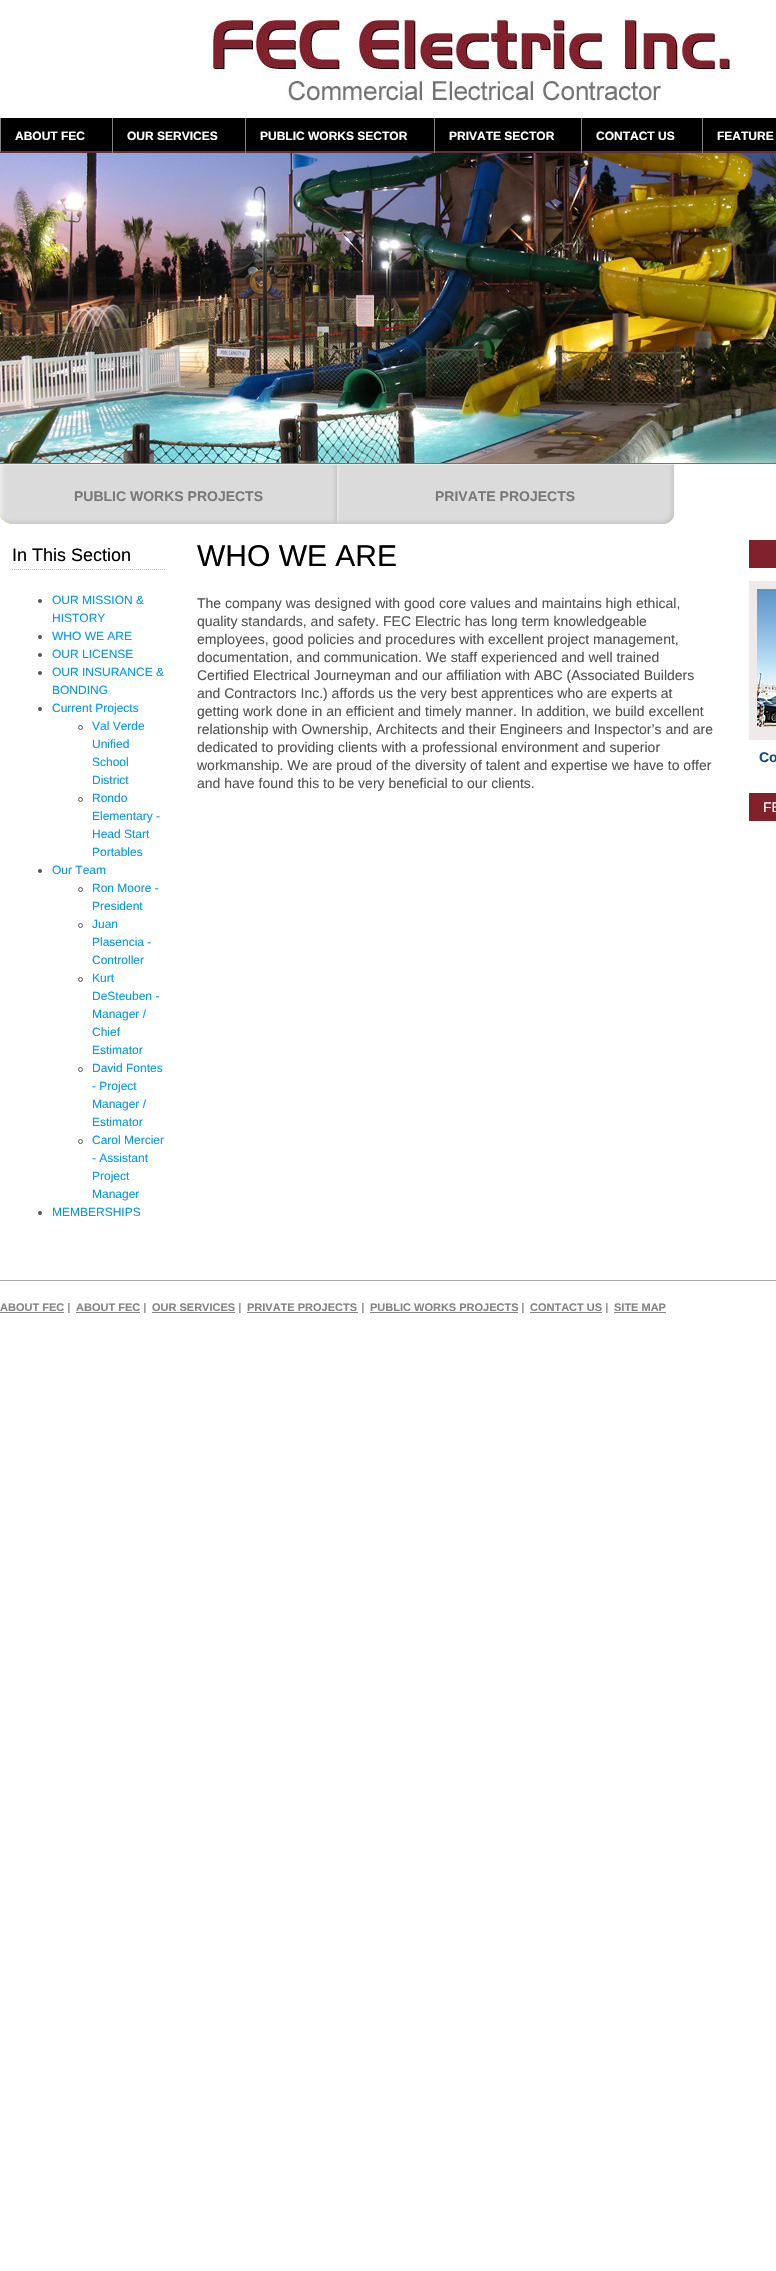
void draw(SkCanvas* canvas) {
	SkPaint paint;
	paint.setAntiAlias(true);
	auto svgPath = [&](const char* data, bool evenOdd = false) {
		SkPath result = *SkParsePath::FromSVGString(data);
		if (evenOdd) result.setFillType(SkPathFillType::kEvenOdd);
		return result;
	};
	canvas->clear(0xffffffff);
	canvas->drawImageRect(SkImages::DeferredFromEncodedData(SkData::MakeFromFileName("img1.png")), SkRect::MakeXYWH(208, 16, 528, 88), SkSamplingOptions());
	paint.setColor(0xff000000);
	canvas->drawRect(SkRect::MakeXYWH(0, 118, 776, 35), paint);
	paint.setColor(0xff5b3238);
	canvas->drawPath(svgPath("M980 153H0L1 151H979Z"), paint);
	paint.setColor(0xff848182);
	canvas->drawPath(svgPath("M0 153V118H1V151Z"), paint);
	canvas->drawRect(SkRect::MakeXYWH(112, 118, 1, 35), paint);
	SkFont f1(fontMgr->matchFamilyStyle("Liberation Sans", SkFontStyle::Bold()), 12);
	f1.setSubpixel(true);
	paint.setColor(0xffffffff);
	canvas->drawString("ABOUT FEC", 15, 140, f1, paint);
	paint.setColor(0xff848182);
	canvas->drawRect(SkRect::MakeXYWH(245, 118, 1, 35), paint);
	paint.setColor(0xffffffff);
	canvas->drawString("OUR SERVICES", 127, 140, f1, paint);
	paint.setColor(0xff848182);
	canvas->drawRect(SkRect::MakeXYWH(434, 118, 1, 35), paint);
	paint.setColor(0xffffffff);
	canvas->drawString("PUBLIC WORKS SECTOR", 260, 140, f1, paint);
	paint.setColor(0xff848182);
	canvas->drawRect(SkRect::MakeXYWH(581, 118, 1, 35), paint);
	paint.setColor(0xffffffff);
	canvas->drawString("PRIVATE SECTOR", 449, 140, f1, paint);
	paint.setColor(0xff848182);
	canvas->drawRect(SkRect::MakeXYWH(702, 118, 1, 35), paint);
	paint.setColor(0xffffffff);
	canvas->drawString("CONTACT US", 596, 140, f1, paint);
	canvas->drawString("FEATURE", 717, 140, f1, paint);
	canvas->drawImageRect(SkImages::DeferredFromEncodedData(SkData::MakeFromFileName("img2.png")), SkRect::MakeXYWH(0, 153, 776, 311), SkSamplingOptions());
	canvas->drawImageRect(SkImages::DeferredFromEncodedData(SkData::MakeFromFileName("img3.png")), SkRect::MakeXYWH(0, 464, 674, 62), SkSamplingOptions());
	SkFont f2(fontMgr->matchFamilyStyle("Liberation Sans", SkFontStyle::Bold()), 14);
	f2.setSubpixel(true);
	paint.setColor(0xff797979);
	canvas->drawString("PUBLIC WORKS PROJECTS", 74, 501, f2, paint);
	canvas->drawString("PRIVATE PROJECTS", 435, 501, f2, paint);
	canvas->drawImageRect(SkImages::DeferredFromEncodedData(SkData::MakeFromFileName("img4.png")), SkRect::MakeXYWH(12, 569, 153, 1), SkSamplingOptions());
	SkFont f3(fontMgr->matchFamilyStyle("Liberation Sans", SkFontStyle::Normal()), 18);
	f3.setSubpixel(true);
	paint.setColor(0xff000000);
	canvas->drawString("In This Section", 12, 561, f3, paint);
	paint.setColor(0xff535353);
	canvas->drawCircle(40, 601, 2, paint);
	SkFont f4(fontMgr->matchFamilyStyle("Liberation Sans", SkFontStyle::Normal()), 12);
	f4.setSubpixel(true);
	paint.setColor(0xff0096ff);
	canvas->drawString("OUR MISSION &", 52, 604, f4, paint);
	canvas->drawString("HISTORY", 52, 622, f4, paint);
	paint.setColor(0xff535353);
	canvas->drawCircle(40, 637, 2, paint);
	paint.setColor(0xff0096ff);
	canvas->drawString("WHO WE ARE", 52, 640, f4, paint);
	paint.setColor(0xff535353);
	canvas->drawCircle(40, 655, 2, paint);
	paint.setColor(0xff0096ff);
	canvas->drawString("OUR LICENSE", 52, 658, f4, paint);
	paint.setColor(0xff535353);
	canvas->drawCircle(40, 673, 2, paint);
	paint.setColor(0xff0096ff);
	canvas->drawString("OUR INSURANCE &", 52, 676, f4, paint);
	canvas->drawString("BONDING", 52, 694, f4, paint);
	paint.setColor(0xff535353);
	canvas->drawCircle(40, 709, 2, paint);
	paint.setColor(0xff0096ff);
	canvas->drawString("Current Projects", 52, 712, f4, paint);
	paint.setStroke(true);
	paint.setStrokeWidth(1);
	paint.setColor(0xff535353);
	canvas->drawCircle(80.5, 727.5, 2, paint);
	paint.setStroke(false);
	paint.setColor(0xff0096ff);
	canvas->drawString("Val Verde", 92, 730, f4, paint);
	canvas->drawString("Unified", 92, 748, f4, paint);
	canvas->drawString("School", 92, 766, f4, paint);
	canvas->drawString("District", 92, 784, f4, paint);
	paint.setStroke(true);
	paint.setColor(0xff535353);
	canvas->drawCircle(80.5, 799.5, 2, paint);
	paint.setStroke(false);
	paint.setColor(0xff0096ff);
	canvas->drawString("Rondo", 92, 802, f4, paint);
	canvas->drawString("Elementary -", 92, 820, f4, paint);
	canvas->drawString("Head Start", 92, 838, f4, paint);
	canvas->drawString("Portables", 92, 856, f4, paint);
	paint.setColor(0xff535353);
	canvas->drawCircle(40, 871, 2, paint);
	paint.setColor(0xff0096ff);
	canvas->drawString("Our Team", 52, 874, f4, paint);
	paint.setStroke(true);
	paint.setColor(0xff535353);
	canvas->drawCircle(80.5, 889.5, 2, paint);
	paint.setStroke(false);
	paint.setColor(0xff0096ff);
	canvas->drawString("Ron Moore -", 92, 892, f4, paint);
	canvas->drawString("President", 92, 910, f4, paint);
	paint.setStroke(true);
	paint.setColor(0xff535353);
	canvas->drawCircle(80.5, 925.5, 2, paint);
	paint.setStroke(false);
	paint.setColor(0xff0096ff);
	canvas->drawString("Juan", 92, 928, f4, paint);
	canvas->drawString("Plasencia -", 92, 946, f4, paint);
	canvas->drawString("Controller", 92, 964, f4, paint);
	paint.setStroke(true);
	paint.setColor(0xff535353);
	canvas->drawCircle(80.5, 979.5, 2, paint);
	paint.setStroke(false);
	paint.setColor(0xff0096ff);
	canvas->drawString("Kurt", 92, 982, f4, paint);
	canvas->drawString("DeSteuben -", 92, 1000, f4, paint);
	canvas->drawString("Manager /", 92, 1018, f4, paint);
	canvas->drawString("Chief", 92, 1036, f4, paint);
	canvas->drawString("Estimator", 92, 1054, f4, paint);
	paint.setStroke(true);
	paint.setColor(0xff535353);
	canvas->drawCircle(80.5, 1069.5, 2, paint);
	paint.setStroke(false);
	paint.setColor(0xff0096ff);
	canvas->drawString("David Fontes", 92, 1072, f4, paint);
	canvas->drawString("- Project", 92, 1090, f4, paint);
	canvas->drawString("Manager /", 92, 1108, f4, paint);
	canvas->drawString("Estimator", 92, 1126, f4, paint);
	paint.setStroke(true);
	paint.setColor(0xff535353);
	canvas->drawCircle(80.5, 1141.5, 2, paint);
	paint.setStroke(false);
	paint.setColor(0xff0096ff);
	canvas->drawString("Carol Mercier", 92, 1144, f4, paint);
	canvas->drawString("- Assistant", 92, 1162, f4, paint);
	canvas->drawString("Project", 92, 1180, f4, paint);
	canvas->drawString("Manager", 92, 1198, f4, paint);
	paint.setColor(0xff535353);
	canvas->drawCircle(40, 1213, 2, paint);
	paint.setColor(0xff0096ff);
	canvas->drawString("MEMBERSHIPS", 52, 1216, f4, paint);
	SkFont f5(fontMgr->matchFamilyStyle("Liberation Sans", SkFontStyle::Normal()), 30);
	f5.setSubpixel(true);
	paint.setColor(0xff000000);
	canvas->drawString("WHO WE ARE", 197, 566, f5, paint);
	SkFont f6(fontMgr->matchFamilyStyle("Liberation Sans", SkFontStyle::Normal()), 14);
	f6.setSubpixel(true);
	paint.setColor(0xff535353);
	canvas->drawString("The company was designed with good core values and maintains high ethical,", 197, 608, f6, paint);
	canvas->drawString("quality standards, and safety. FEC Electric has long term knowledgeable", 197, 626, f6, paint);
	canvas->drawString("employees, good policies and procedures with excellent project management,", 197, 644, f6, paint);
	canvas->drawString("documentation, and communication. We staff experienced and well trained", 197, 662, f6, paint);
	canvas->drawString("Certified Electrical Journeyman and our affiliation with ABC (Associated Builders", 197, 680, f6, paint);
	canvas->drawString("and Contractors Inc.) affords us the very best apprentices who are experts at", 197, 698, f6, paint);
	canvas->drawString("getting work done in an efficient and timely manner. In addition, we build excellent", 197, 716, f6, paint);
	canvas->drawString("relationship with Ownership, Architects and their Engineers and Inspector’s and are", 197, 734, f6, paint);
	canvas->drawString("dedicated to providing clients with a professional environment and superior", 197, 752, f6, paint);
	canvas->drawString("workmanship. We are proud of the diversity of talent and expertise we have to offer", 197, 770, f6, paint);
	canvas->drawString("and have found this to be very beneficial to our clients.", 197, 788, f6, paint);
	paint.setColor(0xff81212c);
	canvas->drawRect(SkRect::MakeXYWH(749, 540, 27, 28), paint);
	paint.setColor(0xfff0e9e9);
	canvas->drawRect(SkRect::MakeXYWH(749, 581, 27, 159), paint);
	canvas->drawImageRect(SkImages::DeferredFromEncodedData(SkData::MakeFromFileName("img5.png")), SkRect::MakeXYWH(757, 589, 19, 138), SkSamplingOptions());
	paint.setColor(0xff104b84);
	canvas->drawString("Co", 759, 762, f2, paint);
	paint.setColor(0xff81212c);
	canvas->drawRect(SkRect::MakeXYWH(749, 793, 27, 28), paint);
	paint.setColor(0xffffffff);
	canvas->drawString("FE", 763, 812, f6, paint);
	paint.setColor(0xffa8a8a8);
	canvas->drawRect(SkRect::MakeXYWH(0, 1280, 776, 1), paint);
	canvas->drawImageRect(SkImages::DeferredFromEncodedData(SkData::MakeFromFileName("img6.png")), SkRect::MakeXYWH(68, 1303, 2, 10), SkSamplingOptions());
	SkFont f7(fontMgr->matchFamilyStyle("Liberation Sans", SkFontStyle::Bold()), 11);
	f7.setSubpixel(true);
	paint.setColor(0xff848484);
	canvas->drawString("ABOUT FEC", 0, 1311, f7, paint);
	canvas->drawRect(SkRect::MakeXYWH(0, 1312, 64, 1), paint);
	canvas->drawImageRect(SkImages::DeferredFromEncodedData(SkData::MakeFromFileName("img6.png")), SkRect::MakeXYWH(144, 1303, 2, 10), SkSamplingOptions());
	canvas->drawString("ABOUT FEC", 76, 1311, f7, paint);
	canvas->drawRect(SkRect::MakeXYWH(76, 1312, 64, 1), paint);
	canvas->drawImageRect(SkImages::DeferredFromEncodedData(SkData::MakeFromFileName("img6.png")), SkRect::MakeXYWH(239, 1303, 2, 10), SkSamplingOptions());
	canvas->drawString("OUR SERVICES", 152, 1311, f7, paint);
	canvas->drawRect(SkRect::MakeXYWH(152, 1312, 83, 1), paint);
	canvas->drawImageRect(SkImages::DeferredFromEncodedData(SkData::MakeFromFileName("img6.png")), SkRect::MakeXYWH(362, 1303, 2, 10), SkSamplingOptions());
	canvas->drawString("PRIVATE PROJECTS", 247, 1311, f7, paint);
	canvas->drawRect(SkRect::MakeXYWH(247, 1312, 111, 1), paint);
	canvas->drawImageRect(SkImages::DeferredFromEncodedData(SkData::MakeFromFileName("img6.png")), SkRect::MakeXYWH(522, 1303, 2, 10), SkSamplingOptions());
	canvas->drawString("PUBLIC WORKS PROJECTS", 370, 1311, f7, paint);
	canvas->drawRect(SkRect::MakeXYWH(370, 1312, 148, 1), paint);
	canvas->drawImageRect(SkImages::DeferredFromEncodedData(SkData::MakeFromFileName("img6.png")), SkRect::MakeXYWH(606, 1303, 2, 10), SkSamplingOptions());
	canvas->drawString("CONTACT US", 530, 1311, f7, paint);
	canvas->drawRect(SkRect::MakeXYWH(530, 1312, 72, 1), paint);
	canvas->drawString("SITE MAP", 614, 1311, f7, paint);
	canvas->drawRect(SkRect::MakeXYWH(614, 1312, 52, 1), paint);
}
